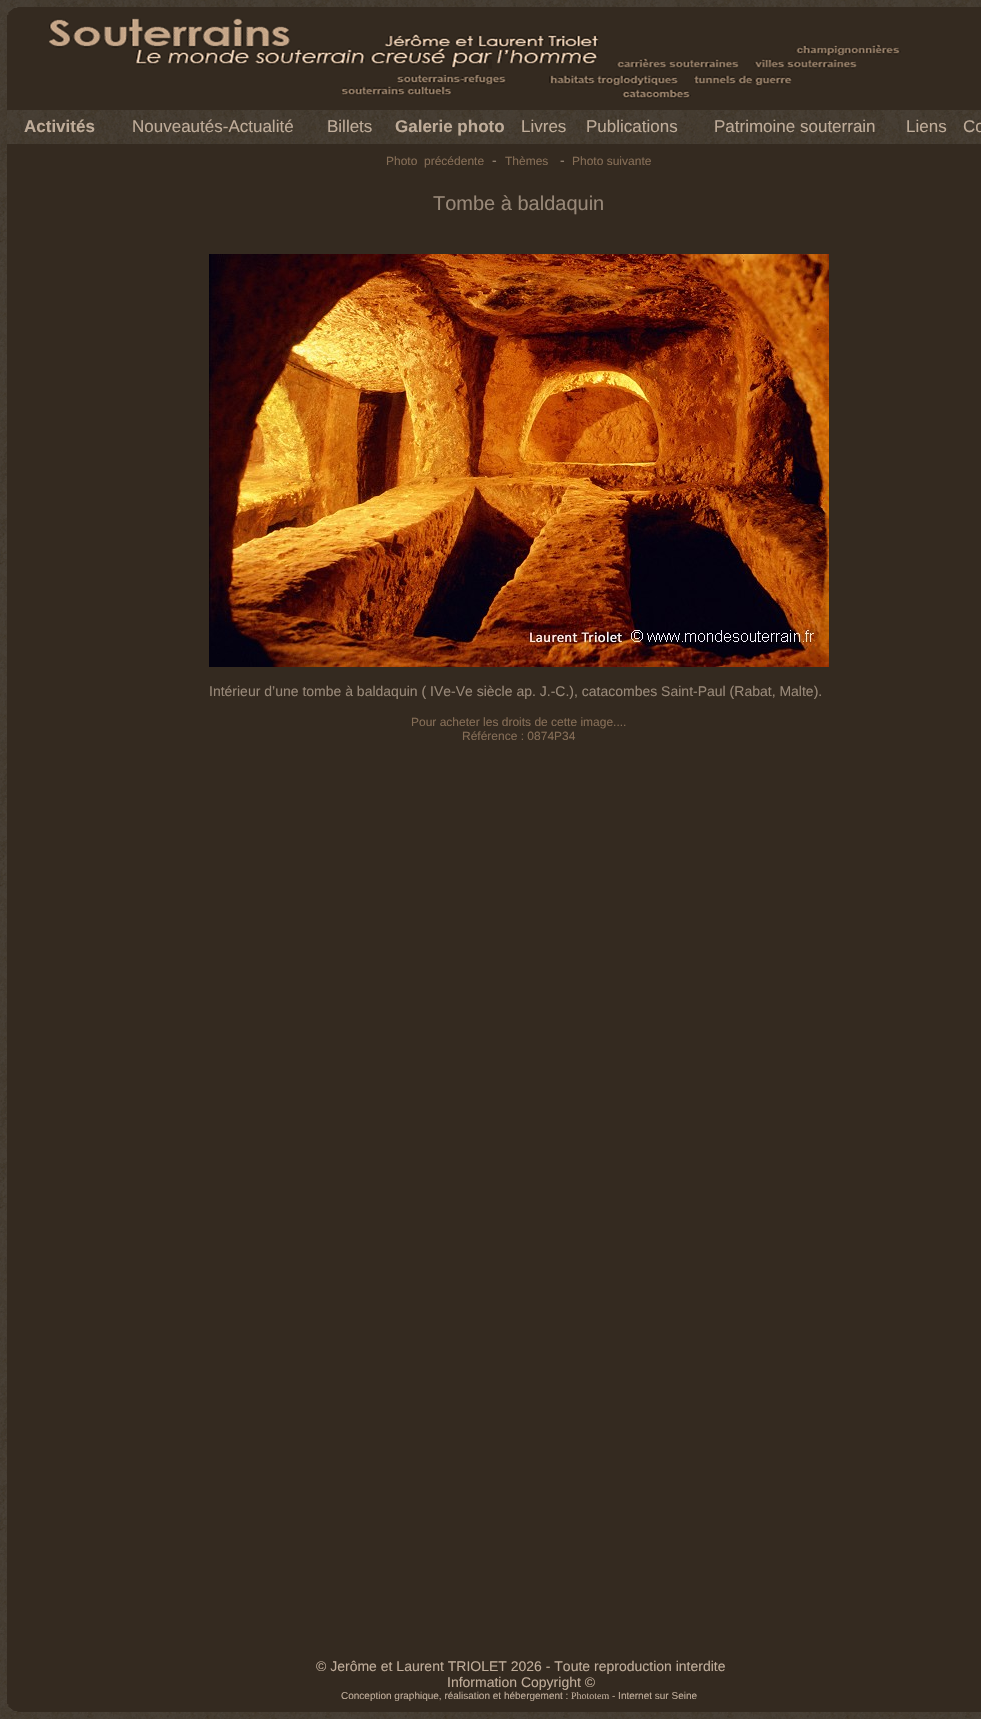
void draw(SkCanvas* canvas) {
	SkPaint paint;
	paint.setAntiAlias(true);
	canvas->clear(0xffffffff);
	canvas->drawImageRect(SkImages::DeferredFromEncodedData(SkData::MakeFromFileName("img1.png")), SkRect::MakeXYWH(0, 0, 981, 1719), SkSamplingOptions());
	paint.setColor(0xff342a20);
	canvas->drawRect(SkRect::MakeXYWH(7, 7, 974, 1705), paint);
	canvas->drawImageRect(SkImages::DeferredFromEncodedData(SkData::MakeFromFileName("img2.png")), SkRect::MakeXYWH(7, 7, 11, 8), SkSamplingOptions());
	canvas->drawImageRect(SkImages::DeferredFromEncodedData(SkData::MakeFromFileName("img3.png")), SkRect::MakeXYWH(49, 18, 852, 81), SkSamplingOptions());
	canvas->drawImageRect(SkImages::DeferredFromEncodedData(SkData::MakeFromFileName("img4.png")), SkRect::MakeXYWH(7, 110, 974, 34), SkSamplingOptions());
	SkFont f1(fontMgr->matchFamilyStyle("Liberation Sans", SkFontStyle::Bold()), 17);
	f1.setSubpixel(true);
	paint.setColor(0xffbfac99);
	canvas->drawString("Activités", 24, 132, f1, paint);
	SkFont f2(fontMgr->matchFamilyStyle("Liberation Sans", SkFontStyle::Normal()), 17);
	f2.setSubpixel(true);
	canvas->drawString("Nouveautés-Actualité", 132, 132, f2, paint);
	canvas->drawString("Billets", 327, 132, f2, paint);
	canvas->drawString("Galerie photo", 395, 132, f1, paint);
	canvas->drawString("Livres", 521, 132, f2, paint);
	canvas->drawString("Publications", 586, 132, f2, paint);
	canvas->drawString("Patrimoine souterrain", 714, 132, f2, paint);
	canvas->drawString("Liens", 906, 132, f2, paint);
	canvas->drawString("Co", 963, 132, f2, paint);
	SkFont f3(fontMgr->matchFamilyStyle("Liberation Sans", SkFontStyle::Normal()), 12);
	f3.setSubpixel(true);
	paint.setColor(0xff856d56);
	canvas->drawString("Photo  précédente", 386, 165, f3, paint);
	SkFont f4(fontMgr->matchFamilyStyle("Liberation Sans", SkFontStyle::Normal()), 14);
	f4.setSubpixel(true);
	paint.setColor(0xff988878);
	canvas->drawString("-", 492, 165, f4, paint);
	paint.setColor(0xff856d56);
	canvas->drawString("Thèmes", 505, 165, f3, paint);
	paint.setColor(0xff988878);
	canvas->drawString("-", 560, 165, f4, paint);
	paint.setColor(0xff856d56);
	canvas->drawString("Photo suivante", 572, 165, f3, paint);
	SkFont f5(fontMgr->matchFamilyStyle("Liberation Sans", SkFontStyle::Normal()), 20);
	f5.setSubpixel(true);
	paint.setColor(0xff988878);
	canvas->drawString("Tombe à baldaquin", 433, 210, f5, paint);
	canvas->drawImageRect(SkImages::DeferredFromEncodedData(SkData::MakeFromFileName("img5.png")), SkRect::MakeXYWH(209, 254, 620, 413), SkSamplingOptions());
	canvas->drawString("Intérieur d’une tombe à baldaquin ( IVe-Ve siècle ap. J.-C.), catacombes Saint-Paul (Rabat, Malte).", 209, 696, f4, paint);
	paint.setColor(0xff856d56);
	canvas->drawString("Pour acheter les droits de cette image....", 411, 726, f3, paint);
	canvas->drawString("Référence : 0874P34", 462, 740, f3, paint);
	paint.setColor(0xffbfac99);
	canvas->drawString("© Jerôme et Laurent TRIOLET 2026 - Toute reproduction interdite", 316, 1671, f4, paint);
	canvas->drawString("Information Copyright ©", 447, 1687, f4, paint);
	SkFont f6(fontMgr->matchFamilyStyle("Liberation Sans", SkFontStyle::Normal()), 10);
	f6.setSubpixel(true);
	canvas->drawString("Conception graphique, réalisation et hébergement :", 341, 1699, f6, paint);
	SkFont f7(fontMgr->matchFamilyStyle("Liberation Serif", SkFontStyle::Normal()), 10);
	f7.setSubpixel(true);
	canvas->drawString("Phototem", 571, 1699, f7, paint);
	canvas->drawString("- Internet sur Seine", 612, 1699, f6, paint);
	canvas->drawImageRect(SkImages::DeferredFromEncodedData(SkData::MakeFromFileName("img6.png")), SkRect::MakeXYWH(7, 1701, 420, 11), SkSamplingOptions());
}
